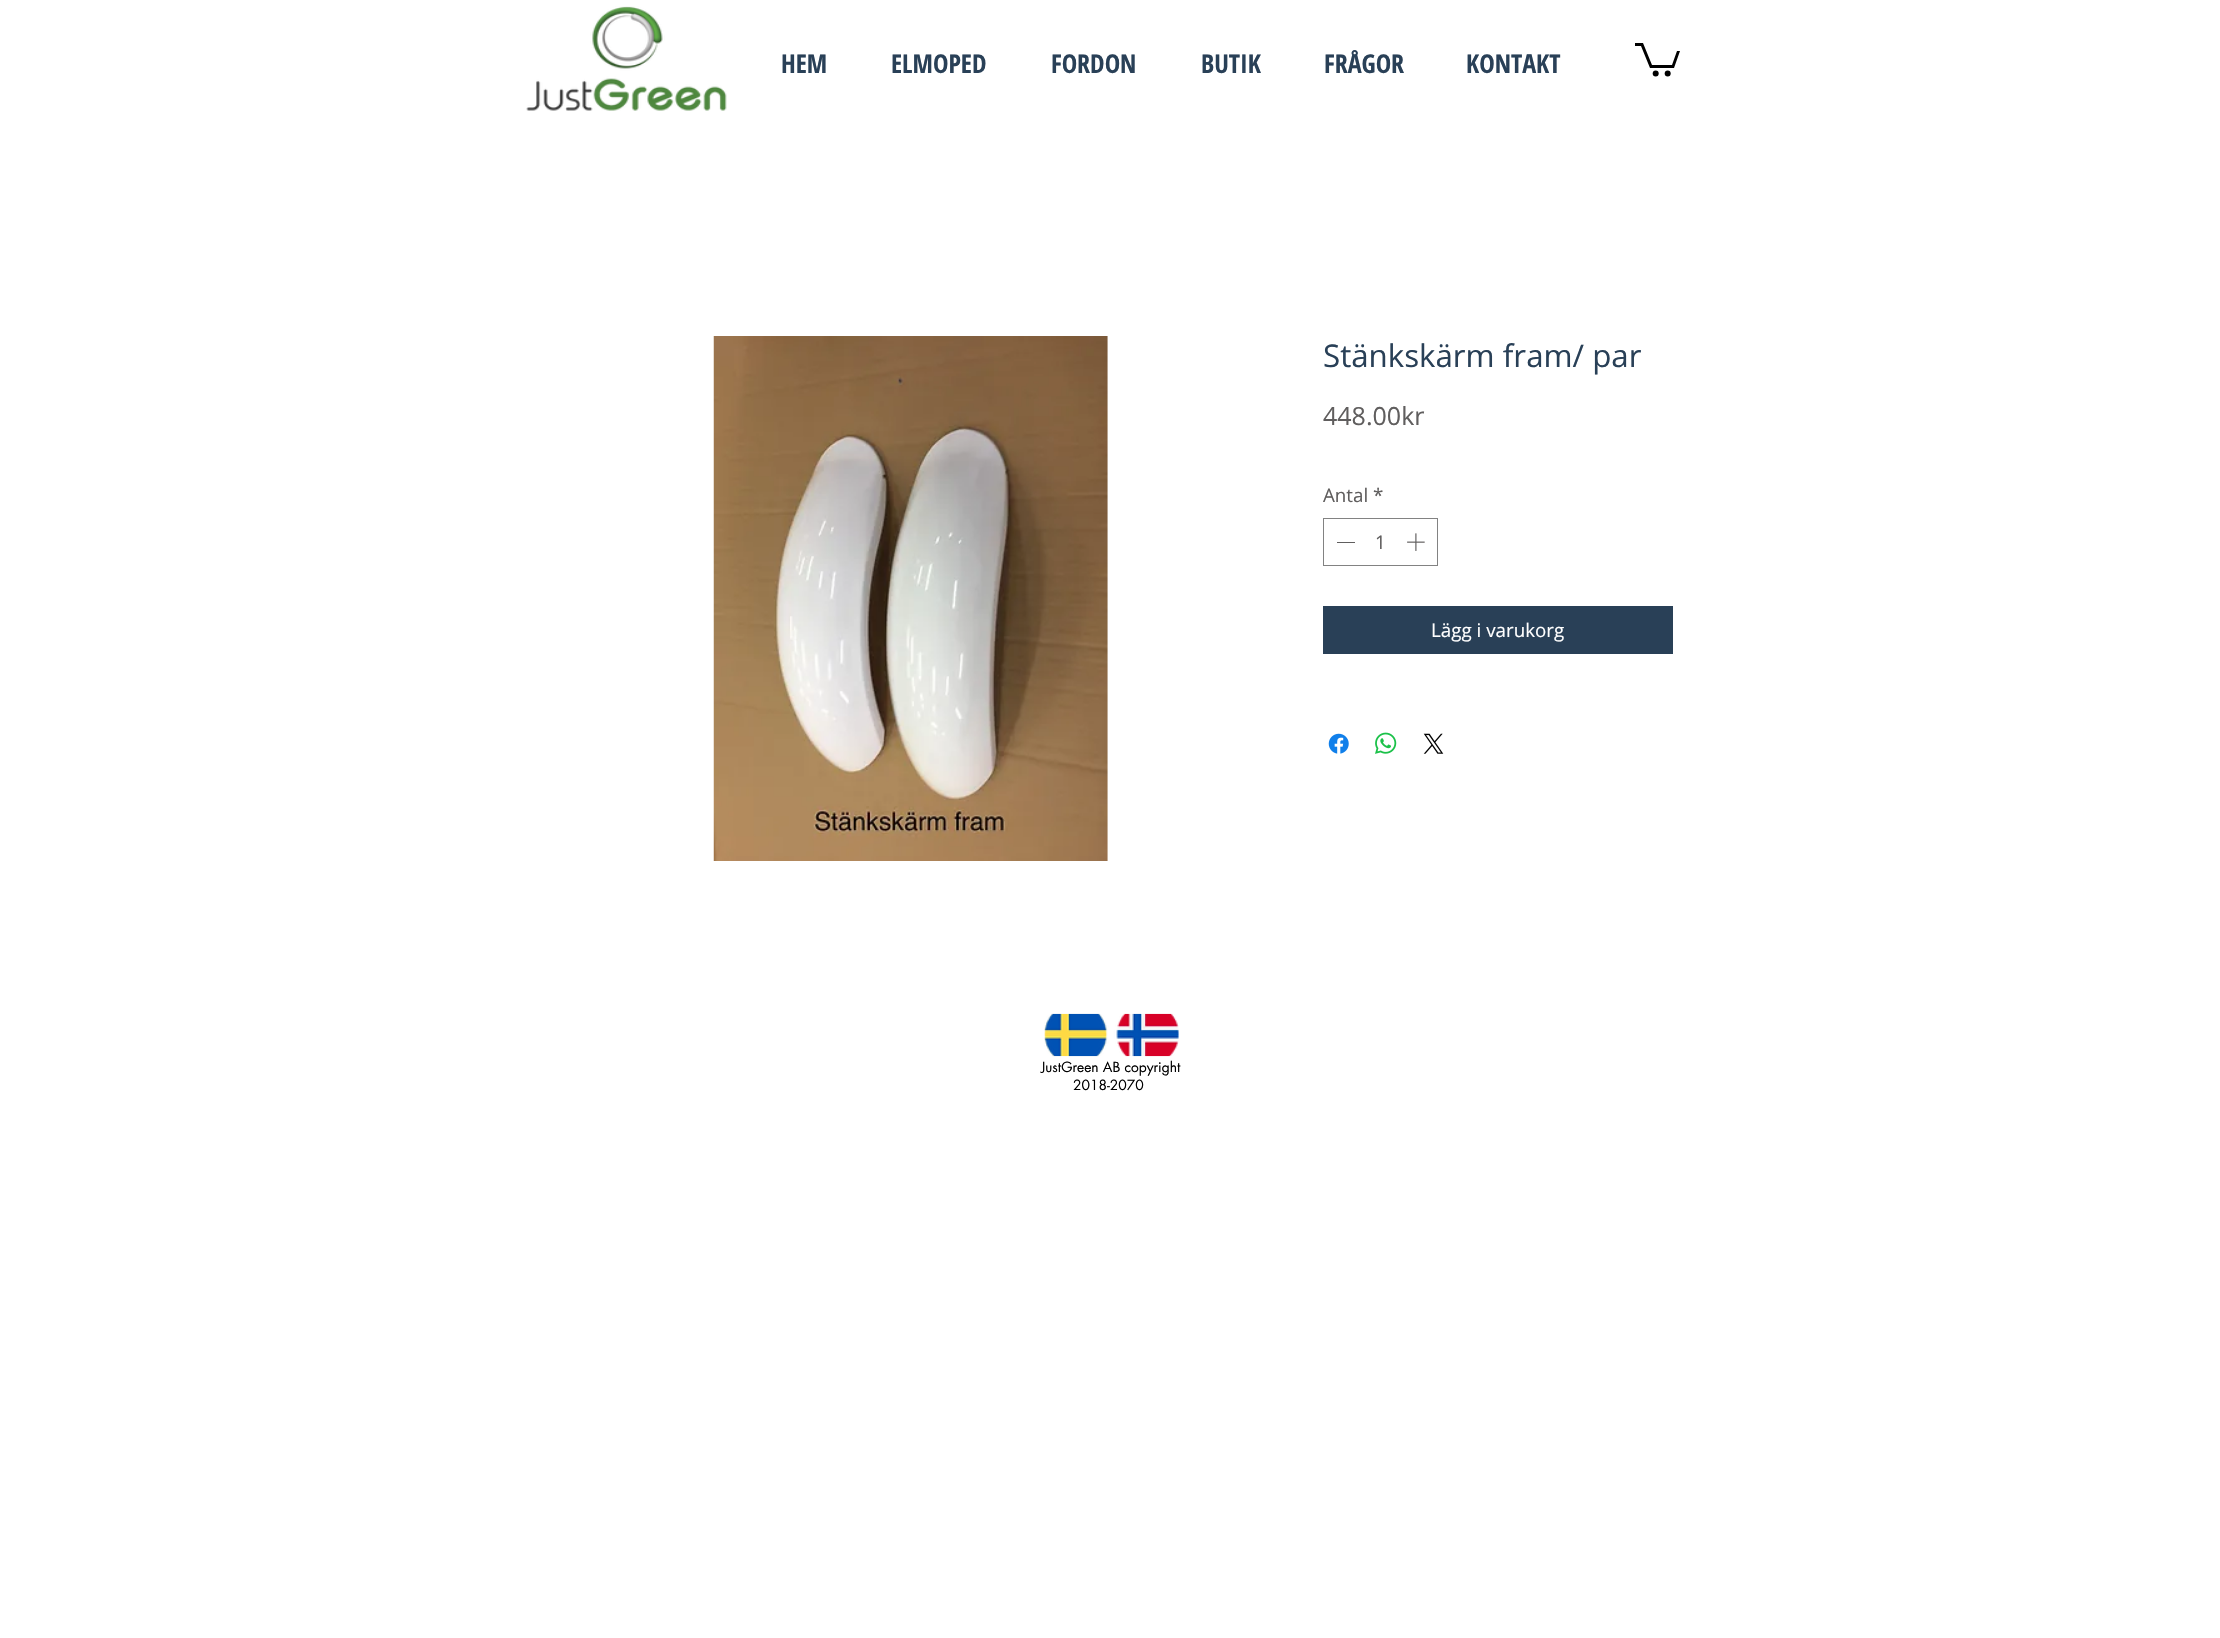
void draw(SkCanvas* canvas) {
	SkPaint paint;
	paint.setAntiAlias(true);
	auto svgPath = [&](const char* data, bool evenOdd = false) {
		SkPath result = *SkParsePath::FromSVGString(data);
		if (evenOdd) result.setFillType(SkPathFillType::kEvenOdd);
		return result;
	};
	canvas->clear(0xffffffff);
	canvas->drawImageRect(SkImages::DeferredFromEncodedData(SkData::MakeFromFileName("img1.png")), SkRect::MakeXYWH(526, 6, 201, 105), SkSamplingOptions());
	SkFont f1(fontMgr->matchFamilyStyle("Open Sans Condensed", SkFontStyle::Bold()), 26);
	f1.setSubpixel(true);
	paint.setColor(0xff294057);
	canvas->drawString("HEM", 781, 73, f1, paint);
	canvas->drawString("ELMOPED", 891, 73, f1, paint);
	canvas->drawString("FORDON", 1051, 73, f1, paint);
	canvas->drawString("BUTIK", 1201, 73, f1, paint);
	canvas->drawString("FRÅGOR", 1324, 73, f1, paint);
	canvas->drawString("KONTAKT", 1466, 73, f1, paint);
	paint.setColor(0xff000000);
	canvas->drawPath(svgPath("M1680 51L1674 68H1650L1641 46H1635V43H1643L1652 65H1672L1677 51"), paint);
	canvas->drawCircle(1667.7, 73.6, 3, paint);
	canvas->drawCircle(1655.7, 73.6, 3, paint);
	canvas->drawImageRect(SkImages::DeferredFromEncodedData(SkData::MakeFromFileName("img2.png")), SkRect::MakeXYWH(713, 336, 395, 525), SkSamplingOptions());
	SkFont f2(fontMgr->matchFamilyStyle("Open Sans", SkFontStyle::Normal()), 31.25);
	f2.setSubpixel(true);
	paint.setColor(0xff294057);
	canvas->drawString("Stänkskärm fram/ par", 1323, 367, f2, paint);
	SkFont f3(fontMgr->matchFamilyStyle("Open Sans", SkFontStyle::Normal()), 25);
	f3.setSubpixel(true);
	paint.setColor(0xff605e5e);
	canvas->drawString("448.00kr", 1323, 425, f3, paint);
	SkFont f4(fontMgr->matchFamilyStyle("Open Sans", SkFontStyle::Normal()), 18.75);
	f4.setSubpixel(true);
	canvas->drawString("Antal *", 1323, 502, f4, paint);
	paint.setStroke(true);
	paint.setStrokeWidth(1);
	paint.setColor(0xff828282);
	canvas->drawRect(SkRect::MakeXYWH(1323.5, 518.5, 114, 47), paint);
	paint.setStroke(false);
	paint.setColor(0xff605e5e);
	canvas->drawRect(SkRect::MakeXYWH(1337, 542, 18, 1), paint);
	canvas->drawString("1", 1375, 549, f4, paint);
	canvas->drawImageRect(SkImages::DeferredFromEncodedData(SkData::MakeFromFileName("img3.png")), SkRect::MakeXYWH(1407, 533, 18, 18), SkSamplingOptions());
	paint.setColor(0xff294057);
	canvas->drawRect(SkRect::MakeXYWH(1323, 606, 350, 48), paint);
	paint.setColor(0xffffffff);
	canvas->drawString("Lägg i varukorg", 1431, 637, f4, paint);
	canvas->drawImageRect(SkImages::DeferredFromEncodedData(SkData::MakeFromFileName("img4.png")), SkRect::MakeXYWH(1328, 733, 21, 21), SkSamplingOptions());
	canvas->drawImageRect(SkImages::DeferredFromEncodedData(SkData::MakeFromFileName("img5.png")), SkRect::MakeXYWH(1375, 732, 22, 22), SkSamplingOptions());
	canvas->drawImageRect(SkImages::DeferredFromEncodedData(SkData::MakeFromFileName("img6.png")), SkRect::MakeXYWH(1423, 733, 21, 21), SkSamplingOptions());
	canvas->drawImageRect(SkImages::DeferredFromEncodedData(SkData::MakeFromFileName("img7.png")), SkRect::MakeXYWH(1044, 1013, 135, 44), SkSamplingOptions());
	SkFont f5(fontMgr->matchFamilyStyle("futura", SkFontStyle::Normal()), 13.75);
	f5.setSubpixel(true);
	paint.setColor(0xff000000);
	canvas->drawString("JustGreen AB copyright", 1041, 1072, f5, paint);
	canvas->drawString("2018-2070", 1073, 1090, f5, paint);
}
